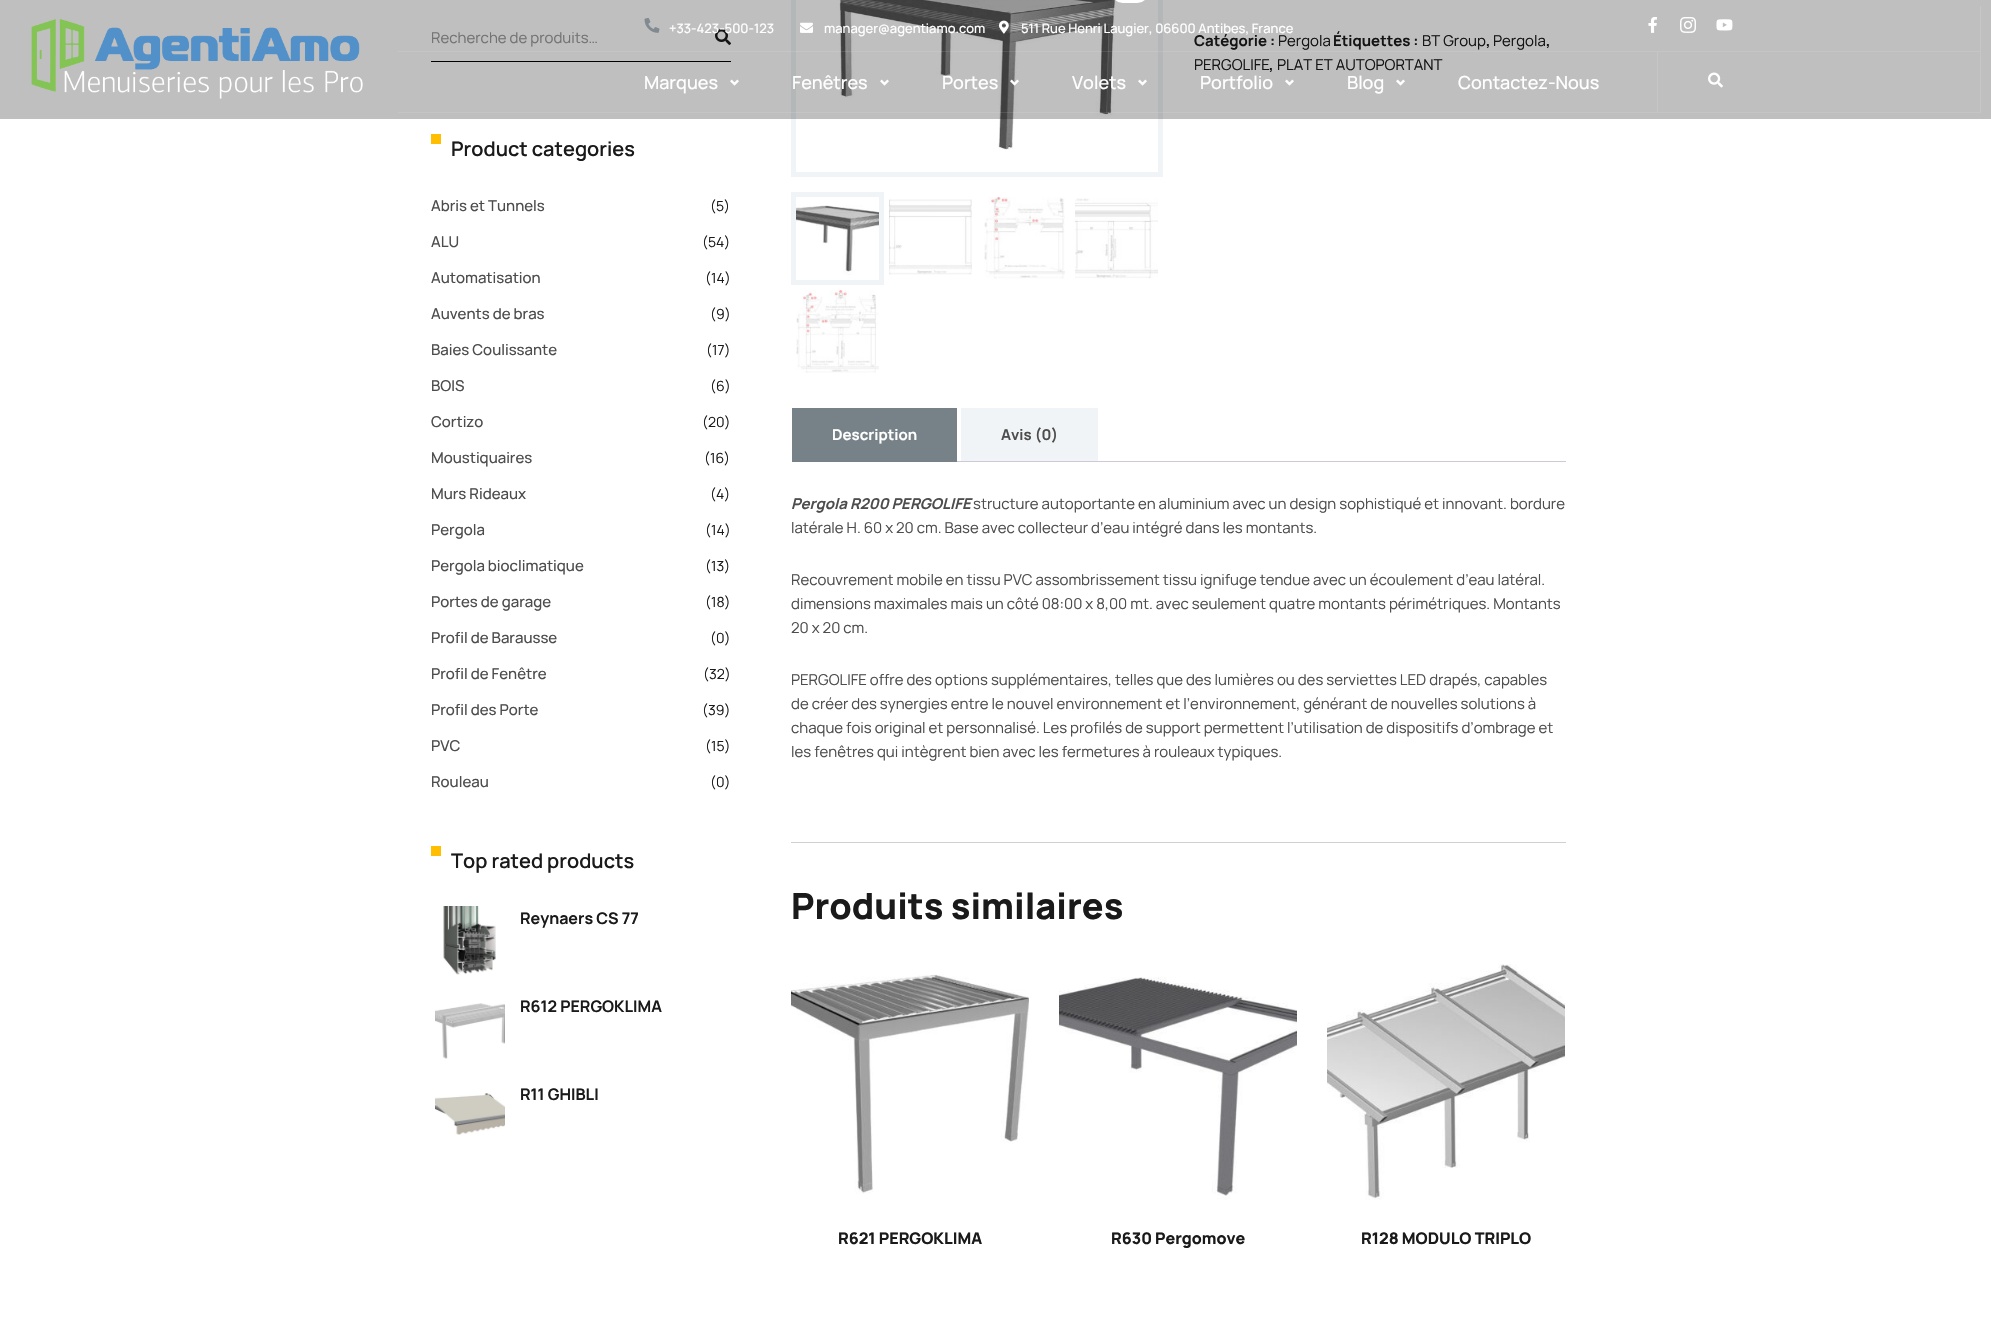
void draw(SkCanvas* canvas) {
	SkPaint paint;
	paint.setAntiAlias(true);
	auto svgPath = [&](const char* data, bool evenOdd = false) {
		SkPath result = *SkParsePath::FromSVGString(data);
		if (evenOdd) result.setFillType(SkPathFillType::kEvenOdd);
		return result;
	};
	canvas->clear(0xffffffff);
	paint.setColor(0xff000000);
	canvas->drawRect(SkRect::MakeXYWH(431, 61, 300, 1), paint);
	SkFont f1(fontMgr->matchFamilyStyle("Manrope", SkFontStyle::Normal()), 15);
	f1.setSubpixel(true);
	paint.setColor(0xff999999);
	canvas->drawString("Recherche de produits…", 431, 43, f1, paint);
	canvas->drawImageRect(SkImages::DeferredFromEncodedData(SkData::MakeFromFileName("img11.png")), SkRect::MakeXYWH(715, 29, 16, 16), SkSamplingOptions());
	paint.setStroke(true);
	paint.setStrokeWidth(5);
	paint.setColor(0xfff1f4f6);
	canvas->drawRect(SkRect::MakeXYWH(793.5, -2.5, 367, 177), paint);
	canvas->drawImageRect(SkImages::DeferredFromEncodedData(SkData::MakeFromFileName("img15.png")), SkRect::MakeXYWH(839, 0, 277, 150), SkSamplingOptions());
	SkFont f2(fontMgr->matchFamilyStyle("Manrope", SkFontStyle::Bold()), 15);
	f2.setSubpixel(true);
	paint.setStroke(false);
	paint.setColor(0xff1a1a1a);
	canvas->drawString("Catégorie :", 1194, 46, f2, paint);
	canvas->drawString("Pergola", 1278, 46, f1, paint);
	canvas->drawString("Étiquettes :", 1333, 46, f2, paint);
	canvas->drawString("BT Group", 1422, 46, f1, paint);
	canvas->drawString(",", 1486, 46, f2, paint);
	canvas->drawString("Pergola", 1493, 46, f1, paint);
	canvas->drawString(",", 1546, 46, f2, paint);
	canvas->drawString("PERGOLIFE", 1194, 70, f1, paint);
	canvas->drawString(",", 1269, 70, f2, paint);
	canvas->drawString("PLAT ET AUTOPORTANT", 1277, 70, f1, paint);
	paint.setColor(0x40000000);
	canvas->drawRect(SkRect::MakeXYWH(0, 0, 1991, 119), paint);
	canvas->drawImageRect(SkImages::DeferredFromEncodedData(SkData::MakeFromFileName("img1.png")), SkRect::MakeXYWH(31, 19, 332, 80), SkSamplingOptions());
	paint.setColor(0xffc6c6c6);
	canvas->drawPath(svgPath("M1981 6V52L1980 51V6Z"), paint);
	paint.setColor(0x1affffff);
	canvas->drawPath(svgPath("M1981 52H398V51H1980Z"), paint);
	canvas->drawImageRect(SkImages::DeferredFromEncodedData(SkData::MakeFromFileName("img2.png")), SkRect::MakeXYWH(644, 18, 16, 15), SkSamplingOptions());
	SkFont f3(fontMgr->matchFamilyStyle("Manrope", SkFontStyle(500, SkFontStyle::kNormal_Width, SkFontStyle::kUpright_Slant)), 13);
	f3.setSubpixel(true);
	paint.setColor(0xffffffff);
	canvas->drawString("+33-423-500-123", 669, 33, f3, paint);
	canvas->drawImageRect(SkImages::DeferredFromEncodedData(SkData::MakeFromFileName("img3.png")), SkRect::MakeXYWH(800, 22, 13, 11), SkSamplingOptions());
	canvas->drawString("manager@agentiamo.com", 824, 33, f3, paint);
	canvas->drawImageRect(SkImages::DeferredFromEncodedData(SkData::MakeFromFileName("img4.png")), SkRect::MakeXYWH(999, 20, 10, 14), SkSamplingOptions());
	canvas->drawString("511 Rue Henri Laugier, 06600 Antibes, France", 1021, 33, f3, paint);
	canvas->drawImageRect(SkImages::DeferredFromEncodedData(SkData::MakeFromFileName("img5.png")), SkRect::MakeXYWH(1648, 17, 9, 16), SkSamplingOptions());
	canvas->drawImageRect(SkImages::DeferredFromEncodedData(SkData::MakeFromFileName("img6.png")), SkRect::MakeXYWH(1680, 17, 16, 16), SkSamplingOptions());
	canvas->drawImageRect(SkImages::DeferredFromEncodedData(SkData::MakeFromFileName("img7.png")), SkRect::MakeXYWH(1716, 19, 17, 12), SkSamplingOptions());
	paint.setColor(0xffc6c6c6);
	canvas->drawPath(svgPath("M1981 52V113L1980 112V52Z"), paint);
	paint.setColor(0x1affffff);
	canvas->drawPath(svgPath("M1981 113H398V112H1980Z"), paint);
	SkFont f4(fontMgr->matchFamilyStyle("Manrope", SkFontStyle(500, SkFontStyle::kNormal_Width, SkFontStyle::kUpright_Slant)), 18);
	f4.setSubpixel(true);
	paint.setColor(0xffffffff);
	canvas->drawString("Marques", 644, 89, f4, paint);
	canvas->drawImageRect(SkImages::DeferredFromEncodedData(SkData::MakeFromFileName("img8.png")), SkRect::MakeXYWH(730, 79, 9, 7), SkSamplingOptions());
	canvas->drawString("Fenêtres", 792, 89, f4, paint);
	canvas->drawImageRect(SkImages::DeferredFromEncodedData(SkData::MakeFromFileName("img8.png")), SkRect::MakeXYWH(880, 79, 9, 7), SkSamplingOptions());
	canvas->drawString("Portes", 942, 89, f4, paint);
	canvas->drawImageRect(SkImages::DeferredFromEncodedData(SkData::MakeFromFileName("img9.png")), SkRect::MakeXYWH(1010, 79, 9, 7), SkSamplingOptions());
	canvas->drawString("Volets", 1072, 89, f4, paint);
	canvas->drawImageRect(SkImages::DeferredFromEncodedData(SkData::MakeFromFileName("img8.png")), SkRect::MakeXYWH(1138, 79, 9, 7), SkSamplingOptions());
	canvas->drawString("Portfolio", 1200, 89, f4, paint);
	canvas->drawImageRect(SkImages::DeferredFromEncodedData(SkData::MakeFromFileName("img8.png")), SkRect::MakeXYWH(1285, 79, 9, 7), SkSamplingOptions());
	canvas->drawString("Blog", 1347, 89, f4, paint);
	canvas->drawImageRect(SkImages::DeferredFromEncodedData(SkData::MakeFromFileName("img8.png")), SkRect::MakeXYWH(1396, 79, 9, 7), SkSamplingOptions());
	canvas->drawString("Contactez-Nous", 1458, 89, f4, paint);
	paint.setColor(0xffc6c6c6);
	canvas->drawRect(SkRect::MakeXYWH(1657, 52, 1, 60), paint);
	canvas->drawImageRect(SkImages::DeferredFromEncodedData(SkData::MakeFromFileName("img10.png")), SkRect::MakeXYWH(1708, 72, 15, 16), SkSamplingOptions());
	paint.setColor(0xffffbf00);
	canvas->drawRect(SkRect::MakeXYWH(431, 134, 10, 10), paint);
	SkFont f5(fontMgr->matchFamilyStyle("Manrope", SkFontStyle(600, SkFontStyle::kNormal_Width, SkFontStyle::kUpright_Slant)), 20);
	f5.setSubpixel(true);
	paint.setColor(0xff1a1a1a);
	canvas->drawString("Product categories", 451, 156, f5, paint);
	SkFont f6(fontMgr->matchFamilyStyle("Manrope", SkFontStyle(500, SkFontStyle::kNormal_Width, SkFontStyle::kUpright_Slant)), 15);
	f6.setSubpixel(true);
	paint.setColor(0xff4d4d4d);
	canvas->drawString("Abris et Tunnels", 431, 211, f6, paint);
	SkFont f7(fontMgr->matchFamilyStyle("Manrope", SkFontStyle::Normal()), 14);
	f7.setSubpixel(true);
	paint.setColor(0xff1a1a1a);
	canvas->drawString("(5)", 710, 211, f7, paint);
	paint.setColor(0xff4d4d4d);
	canvas->drawString("ALU", 431, 247, f6, paint);
	paint.setColor(0xff1a1a1a);
	canvas->drawString("(54)", 702, 247, f7, paint);
	paint.setColor(0xff4d4d4d);
	canvas->drawString("Automatisation", 431, 283, f6, paint);
	paint.setColor(0xff1a1a1a);
	canvas->drawString("(14)", 705, 283, f7, paint);
	paint.setColor(0xff4d4d4d);
	canvas->drawString("Auvents de bras", 431, 319, f6, paint);
	paint.setColor(0xff1a1a1a);
	canvas->drawString("(9)", 710, 319, f7, paint);
	paint.setColor(0xff4d4d4d);
	canvas->drawString("Baies Coulissante", 431, 355, f6, paint);
	paint.setColor(0xff1a1a1a);
	canvas->drawString("(17)", 706, 355, f7, paint);
	paint.setColor(0xff4d4d4d);
	canvas->drawString("BOIS", 431, 391, f6, paint);
	paint.setColor(0xff1a1a1a);
	canvas->drawString("(6)", 710, 391, f7, paint);
	paint.setColor(0xff4d4d4d);
	canvas->drawString("Cortizo", 431, 427, f6, paint);
	paint.setColor(0xff1a1a1a);
	canvas->drawString("(20)", 702, 427, f7, paint);
	paint.setColor(0xff4d4d4d);
	canvas->drawString("Moustiquaires", 431, 463, f6, paint);
	paint.setColor(0xff1a1a1a);
	canvas->drawString("(16)", 704, 463, f7, paint);
	paint.setColor(0xff4d4d4d);
	canvas->drawString("Murs Rideaux", 431, 499, f6, paint);
	paint.setColor(0xff1a1a1a);
	canvas->drawString("(4)", 710, 499, f7, paint);
	paint.setColor(0xff4d4d4d);
	canvas->drawString("Pergola", 431, 535, f6, paint);
	paint.setColor(0xff1a1a1a);
	canvas->drawString("(14)", 705, 535, f7, paint);
	paint.setColor(0xff4d4d4d);
	canvas->drawString("Pergola bioclimatique", 431, 571, f6, paint);
	paint.setColor(0xff1a1a1a);
	canvas->drawString("(13)", 705, 571, f7, paint);
	paint.setColor(0xff4d4d4d);
	canvas->drawString("Portes de garage", 431, 607, f6, paint);
	paint.setColor(0xff1a1a1a);
	canvas->drawString("(18)", 705, 607, f7, paint);
	paint.setColor(0xff4d4d4d);
	canvas->drawString("Profil de Barausse", 431, 643, f6, paint);
	paint.setColor(0xff1a1a1a);
	canvas->drawString("(0)", 710, 643, f7, paint);
	paint.setColor(0xff4d4d4d);
	canvas->drawString("Profil de Fenêtre", 431, 679, f6, paint);
	paint.setColor(0xff1a1a1a);
	canvas->drawString("(32)", 703, 679, f7, paint);
	paint.setColor(0xff4d4d4d);
	canvas->drawString("Profil des Porte", 431, 715, f6, paint);
	paint.setColor(0xff1a1a1a);
	canvas->drawString("(39)", 702, 715, f7, paint);
	paint.setColor(0xff4d4d4d);
	canvas->drawString("PVC", 431, 751, f6, paint);
	paint.setColor(0xff1a1a1a);
	canvas->drawString("(15)", 705, 751, f7, paint);
	paint.setColor(0xff4d4d4d);
	canvas->drawString("Rouleau", 431, 787, f6, paint);
	paint.setColor(0xff1a1a1a);
	canvas->drawString("(0)", 710, 787, f7, paint);
	paint.setColor(0xffffbf00);
	canvas->drawRect(SkRect::MakeXYWH(431, 846, 10, 10), paint);
	paint.setColor(0xff1a1a1a);
	canvas->drawString("Top rated products", 451, 868, f5, paint);
	canvas->drawImageRect(SkImages::DeferredFromEncodedData(SkData::MakeFromFileName("img12.png")), SkRect::MakeXYWH(443, 906, 53, 69), SkSamplingOptions());
	SkFont f8(fontMgr->matchFamilyStyle("Manrope", SkFontStyle::Bold()), 16);
	f8.setSubpixel(true);
	canvas->drawString("Reynaers CS 77", 520, 924, f8, paint);
	canvas->drawImageRect(SkImages::DeferredFromEncodedData(SkData::MakeFromFileName("img13.png")), SkRect::MakeXYWH(435, 1003, 70, 56), SkSamplingOptions());
	canvas->drawString("R612 PERGOKLIMA", 520, 1012, f8, paint);
	canvas->drawImageRect(SkImages::DeferredFromEncodedData(SkData::MakeFromFileName("img14.png")), SkRect::MakeXYWH(435, 1093, 70, 42), SkSamplingOptions());
	canvas->drawString("R11 GHIBLI", 520, 1100, f8, paint);
	paint.setColor(0xffffffff);
	canvas->drawRoundRect(SkRect::MakeXYWH(1112, -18, 36, 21), 18, 18, paint);
	paint.setStroke(true);
	paint.setColor(0xfff1f4f6);
	canvas->drawRect(SkRect::MakeXYWH(793.5, 194.5, 88, 88), paint);
	canvas->drawImageRect(SkImages::DeferredFromEncodedData(SkData::MakeFromFileName("img16.png")), SkRect::MakeXYWH(796, 205, 83, 70), SkSamplingOptions());
	canvas->drawImageRect(SkImages::DeferredFromEncodedData(SkData::MakeFromFileName("img17.png")), SkRect::MakeXYWH(889, 199, 83, 76), SkSamplingOptions());
	canvas->drawImageRect(SkImages::DeferredFromEncodedData(SkData::MakeFromFileName("img18.png")), SkRect::MakeXYWH(984, 197, 81, 82), SkSamplingOptions());
	canvas->drawImageRect(SkImages::DeferredFromEncodedData(SkData::MakeFromFileName("img19.png")), SkRect::MakeXYWH(1075, 198, 83, 81), SkSamplingOptions());
	canvas->drawImageRect(SkImages::DeferredFromEncodedData(SkData::MakeFromFileName("img20.png")), SkRect::MakeXYWH(796, 290, 83, 83), SkSamplingOptions());
	paint.setStroke(false);
	paint.setColor(0xff768188);
	canvas->drawRect(SkRect::MakeXYWH(792, 408, 165, 54), paint);
	paint.setColor(0xffffffff);
	canvas->drawString("Description", 832, 440, f2, paint);
	paint.setColor(0xfff1f4f6);
	canvas->drawRect(SkRect::MakeXYWH(961, 408, 137, 53), paint);
	paint.setColor(0xff4d4d4d);
	canvas->drawString("Avis (0)", 1001, 440, f2, paint);
	paint.setColor(0xffcfc8d8);
	canvas->drawRect(SkRect::MakeXYWH(957, 461, 609, 1), paint);
	paint.setColor(0xffd3ced2);
	canvas->drawRect(SkRect::MakeXYWH(791, 842, 775, 1), paint);
	SkFont f9(fontMgr->matchFamilyStyle("Manrope", SkFontStyle::BoldItalic()), 15);
	f9.setSubpixel(true);
	paint.setColor(0xff4d4d4d);
	canvas->drawString("Pergola R200 PERGOLIFE", 791, 509, f9, paint);
	canvas->drawString("structure autoportante en aluminium avec un design sophistiqué et innovant. bordure", 973, 509, f1, paint);
	canvas->drawString("latérale H. 60 x 20 cm. Base avec collecteur d’eau intégré dans les montants.", 791, 533, f1, paint);
	canvas->drawString("Recouvrement mobile en tissu PVC assombrissement tissu ignifuge tendue avec un écoulement d’eau latéral.", 791, 585, f1, paint);
	canvas->drawString("dimensions maximales mais un côté 08:00 x 8,00 mt. avec seulement quatre montants périmétriques. Montants", 791, 609, f1, paint);
	canvas->drawString("20 x 20 cm.", 791, 633, f1, paint);
	canvas->drawString("PERGOLIFE offre des options supplémentaires, telles que des lumières ou des serviettes LED drapés, capables", 791, 685, f1, paint);
	canvas->drawString("de créer des synergies entre le nouvel environnement et l’environnement, générant de nouvelles solutions à", 791, 709, f1, paint);
	canvas->drawString("chaque fois original et personnalisé. Les profilés de support permettent l’utilisation de dispositifs d’ombrage et", 791, 733, f1, paint);
	canvas->drawString("les fenêtres qui intègrent bien avec les fermetures à rouleaux typiques.", 791, 757, f1, paint);
	SkFont f10(fontMgr->matchFamilyStyle("Manrope", SkFontStyle(800, SkFontStyle::kNormal_Width, SkFontStyle::kUpright_Slant)), 36);
	f10.setSubpixel(true);
	paint.setColor(0xff1a1a1a);
	canvas->drawString("Produits similaires", 791, 919, f10, paint);
	canvas->drawImageRect(SkImages::DeferredFromEncodedData(SkData::MakeFromFileName("img21.png")), SkRect::MakeXYWH(791, 974, 238, 220), SkSamplingOptions());
	SkFont f11(fontMgr->matchFamilyStyle("Manrope", SkFontStyle(800, SkFontStyle::kNormal_Width, SkFontStyle::kUpright_Slant)), 16);
	f11.setSubpixel(true);
	canvas->drawString("R621 PERGOKLIMA", 838, 1244, f11, paint);
	canvas->drawImageRect(SkImages::DeferredFromEncodedData(SkData::MakeFromFileName("img22.png")), SkRect::MakeXYWH(1059, 977, 238, 223), SkSamplingOptions());
	canvas->drawString("R630 Pergomove", 1111, 1244, f11, paint);
	canvas->drawImageRect(SkImages::DeferredFromEncodedData(SkData::MakeFromFileName("img23.png")), SkRect::MakeXYWH(1327, 964, 238, 236), SkSamplingOptions());
	canvas->drawString("R128 MODULO TRIPLO", 1361, 1244, f11, paint);
}
